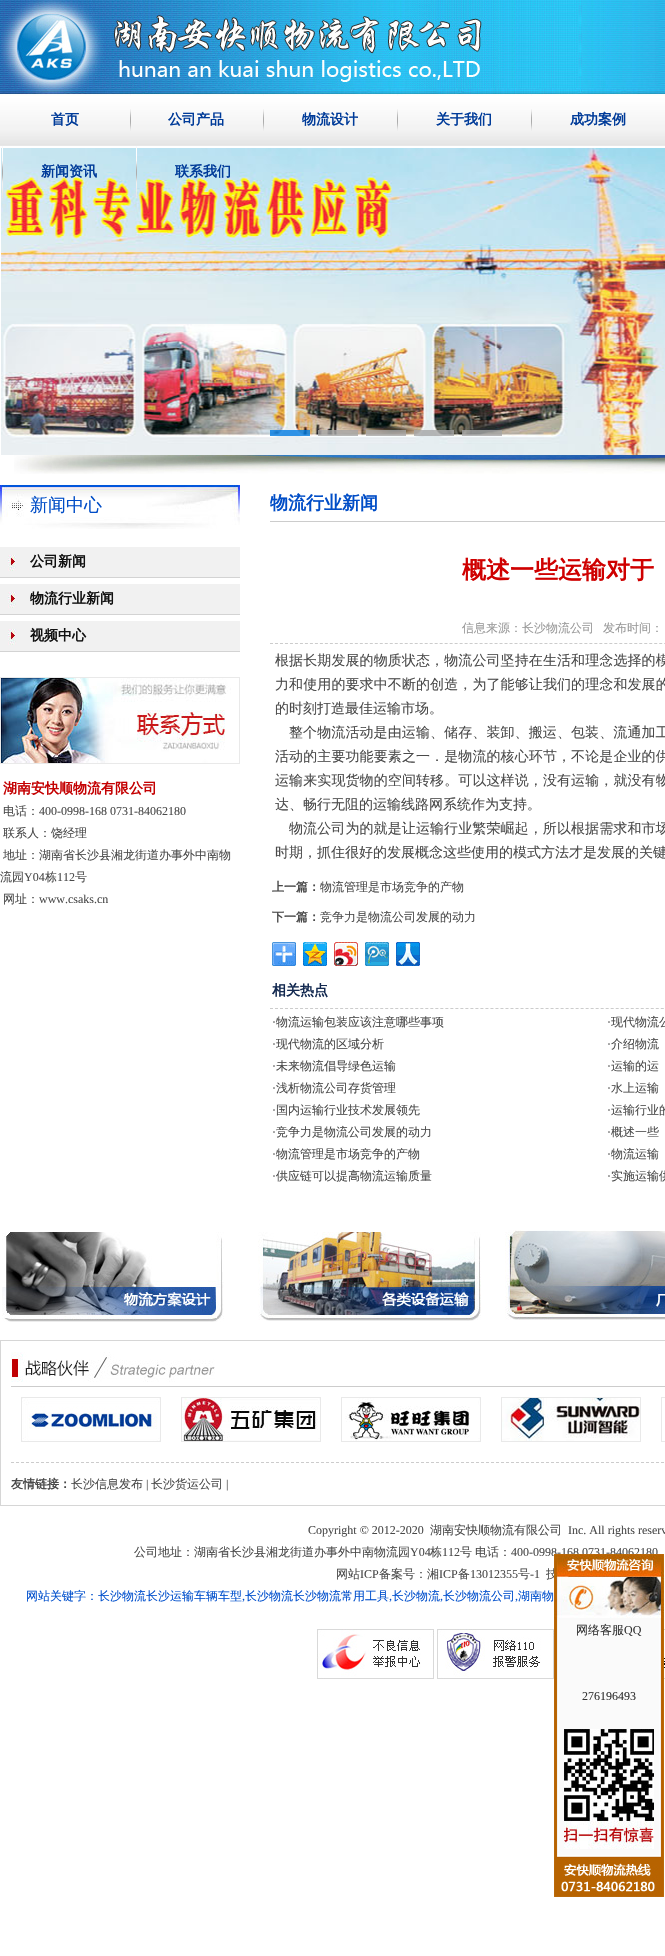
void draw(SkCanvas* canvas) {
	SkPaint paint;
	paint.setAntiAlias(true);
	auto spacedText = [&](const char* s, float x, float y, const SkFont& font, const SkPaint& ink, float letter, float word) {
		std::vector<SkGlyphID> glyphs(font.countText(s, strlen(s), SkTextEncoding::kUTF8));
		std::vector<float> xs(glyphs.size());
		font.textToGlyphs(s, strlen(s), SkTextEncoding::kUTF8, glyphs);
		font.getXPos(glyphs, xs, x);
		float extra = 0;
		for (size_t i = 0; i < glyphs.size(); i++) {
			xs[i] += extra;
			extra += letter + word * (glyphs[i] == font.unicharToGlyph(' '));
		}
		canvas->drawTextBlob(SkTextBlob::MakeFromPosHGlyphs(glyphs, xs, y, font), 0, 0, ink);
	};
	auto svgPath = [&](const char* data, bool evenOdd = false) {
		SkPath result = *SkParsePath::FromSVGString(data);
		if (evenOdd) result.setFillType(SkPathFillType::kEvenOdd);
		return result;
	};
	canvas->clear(0xffffffff);
	canvas->drawImageRect(SkImages::DeferredFromEncodedData(SkData::MakeFromFileName("img1.png")), SkRect::MakeXYWH(0, 94, 665, 52), SkSamplingOptions());
	canvas->drawImageRect(SkImages::DeferredFromEncodedData(SkData::MakeFromFileName("img2.png")), SkRect::MakeXYWH(0, 0, 665, 94), SkSamplingOptions());
	SkFont f1(fontMgr->matchFamilyStyle("WenQuanYi Zen Hei", SkFontStyle::Bold()), 14);
	f1.setSubpixel(true);
	paint.setColor(0xff003b99);
	canvas->drawString("首页", 51, 124, f1, paint);
	canvas->drawImageRect(SkImages::DeferredFromEncodedData(SkData::MakeFromFileName("img3.png")), SkRect::MakeXYWH(130, 94, 1, 37), SkSamplingOptions());
	canvas->drawString("公司产品", 168, 124, f1, paint);
	canvas->drawImageRect(SkImages::DeferredFromEncodedData(SkData::MakeFromFileName("img3.png")), SkRect::MakeXYWH(263, 94, 1, 37), SkSamplingOptions());
	canvas->drawString("物流设计", 302, 124, f1, paint);
	canvas->drawImageRect(SkImages::DeferredFromEncodedData(SkData::MakeFromFileName("img3.png")), SkRect::MakeXYWH(397, 94, 1, 37), SkSamplingOptions());
	canvas->drawString("关于我们", 436, 124, f1, paint);
	canvas->drawImageRect(SkImages::DeferredFromEncodedData(SkData::MakeFromFileName("img3.png")), SkRect::MakeXYWH(531, 94, 1, 37), SkSamplingOptions());
	canvas->drawString("成功案例", 570, 124, f1, paint);
	canvas->drawImageRect(SkImages::DeferredFromEncodedData(SkData::MakeFromFileName("img5.png")), SkRect::MakeXYWH(1, 148, 664, 307), SkSamplingOptions());
	canvas->drawImageRect(SkImages::DeferredFromEncodedData(SkData::MakeFromFileName("img4.png")), SkRect::MakeXYWH(2, 146, 1, 52), SkSamplingOptions());
	canvas->drawString("新闻资讯", 41, 176, f1, paint);
	canvas->drawImageRect(SkImages::DeferredFromEncodedData(SkData::MakeFromFileName("img4.png")), SkRect::MakeXYWH(136, 146, 1, 52), SkSamplingOptions());
	canvas->drawString("联系我们", 175, 176, f1, paint);
	paint.setColor(0xcc007ae2);
	canvas->drawRect(SkRect::MakeXYWH(270, 430, 40, 6), paint);
	paint.setColor(0xcca5a5a5);
	canvas->drawRect(SkRect::MakeXYWH(318, 430, 40, 6), paint);
	canvas->drawRect(SkRect::MakeXYWH(366, 430, 40, 6), paint);
	canvas->drawRect(SkRect::MakeXYWH(414, 430, 40, 6), paint);
	canvas->drawRect(SkRect::MakeXYWH(462, 430, 40, 6), paint);
	canvas->drawImageRect(SkImages::DeferredFromEncodedData(SkData::MakeFromFileName("img6.png")), SkRect::MakeXYWH(14, 455, 651, 19), SkSamplingOptions());
	canvas->drawImageRect(SkImages::DeferredFromEncodedData(SkData::MakeFromFileName("img7.png")), SkRect::MakeXYWH(0, 485, 240, 44), SkSamplingOptions());
	SkFont f2(fontMgr->matchFamilyStyle("WenQuanYi Zen Hei", SkFontStyle(500, SkFontStyle::kNormal_Width, SkFontStyle::kUpright_Slant)), 18);
	f2.setSubpixel(true);
	paint.setColor(0xff004dc7);
	canvas->drawString("新闻中心", 30, 511, f2, paint);
	canvas->drawImageRect(SkImages::DeferredFromEncodedData(SkData::MakeFromFileName("img8.png")), SkRect::MakeXYWH(0, 547, 240, 30), SkSamplingOptions());
	paint.setColor(0xffd3d3d3);
	canvas->drawRect(SkRect::MakeXYWH(0, 577, 240, 1), paint);
	paint.setColor(0xff111111);
	canvas->drawString("公司新闻", 30, 566, f1, paint);
	canvas->drawImageRect(SkImages::DeferredFromEncodedData(SkData::MakeFromFileName("img8.png")), SkRect::MakeXYWH(0, 584, 240, 30), SkSamplingOptions());
	paint.setColor(0xffd3d3d3);
	canvas->drawRect(SkRect::MakeXYWH(0, 614, 240, 1), paint);
	paint.setColor(0xff111111);
	canvas->drawString("物流行业新闻", 30, 603, f1, paint);
	canvas->drawImageRect(SkImages::DeferredFromEncodedData(SkData::MakeFromFileName("img8.png")), SkRect::MakeXYWH(0, 621, 240, 30), SkSamplingOptions());
	paint.setColor(0xffd3d3d3);
	canvas->drawRect(SkRect::MakeXYWH(0, 651, 240, 1), paint);
	paint.setColor(0xff111111);
	canvas->drawString("视频中心", 30, 640, f1, paint);
	paint.setStroke(true);
	paint.setStrokeWidth(1);
	paint.setColor(0xffe9e9e9);
	canvas->drawRect(SkRect::MakeXYWH(0.5, 677.5, 239, 86), paint);
	canvas->drawImageRect(SkImages::DeferredFromEncodedData(SkData::MakeFromFileName("img9.png")), SkRect::MakeXYWH(1, 678, 230, 85), SkSamplingOptions());
	paint.setStroke(false);
	paint.setColor(0xffc40001);
	canvas->drawString("湖南安快顺物流有限公司", 3, 793, f1, paint);
	SkFont f3(fontMgr->matchFamilyStyle("WenQuanYi Zen Hei", SkFontStyle(500, SkFontStyle::kNormal_Width, SkFontStyle::kUpright_Slant)), 12);
	f3.setSubpixel(true);
	paint.setColor(0xff4a4a4a);
	canvas->drawString("电话：", 3, 815, f3, paint);
	SkFont f4(fontMgr->matchFamilyStyle("Liberation Serif", SkFontStyle::Normal()), 12);
	f4.setSubpixel(true);
	canvas->drawString("400-0998-168 0731-84062180", 39, 815, f4, paint);
	canvas->drawString("联系人：饶经理", 3, 837, f3, paint);
	canvas->drawString("地址：湖南省长沙县湘龙街道办事外中南物", 3, 859, f3, paint);
	canvas->drawString("流园", 0, 881, f3, paint);
	canvas->drawString("Y04", 24, 881, f4, paint);
	canvas->drawString("栋", 45, 881, f3, paint);
	canvas->drawString("112", 57, 881, f4, paint);
	canvas->drawString("号", 75, 881, f3, paint);
	canvas->drawString("网址：", 3, 903, f3, paint);
	canvas->drawString("www.csaks.cn", 39, 903, f4, paint);
	paint.setColor(0xffcccccc);
	canvas->drawRect(SkRect::MakeXYWH(270, 521, 395, 1), paint);
	SkFont f5(fontMgr->matchFamilyStyle("WenQuanYi Zen Hei", SkFontStyle::Bold()), 18);
	f5.setSubpixel(true);
	paint.setColor(0xff004dc7);
	canvas->drawString("物流行业新闻", 270, 509, f5, paint);
	SkFont f6(fontMgr->matchFamilyStyle("WenQuanYi Zen Hei", SkFontStyle::Bold()), 24);
	f6.setSubpixel(true);
	paint.setColor(0xffcf0000);
	canvas->drawString("概述一些运输对于", 462, 578, f6, paint);
	paint.setStroke(true);
	paint.setColor(0xffcccccc);
	paint.setPathEffect(SkDashPathEffect::Make({{3, 1.99f}}, 0));
	canvas->drawPath(svgPath("M270 643.5H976"), paint);
	paint.setPathEffect(nullptr);
	paint.setStroke(false);
	paint.setColor(0xff999999);
	canvas->drawString("信息来源：长沙物流公司", 462, 632, f3, paint);
	canvas->drawString("发布时间：", 603, 632, f3, paint);
	SkFont f7(fontMgr->matchFamilyStyle("WenQuanYi Zen Hei", SkFontStyle(500, SkFontStyle::kNormal_Width, SkFontStyle::kUpright_Slant)), 14);
	f7.setSubpixel(true);
	paint.setColor(0xff4a4a4a);
	spacedText("根据长期发展的物质状态，物流公司坚持在生活和理念选择的模", 275, 665, f7, paint, 0.1, 0);
	spacedText("力和使用的要求中不断的创造，为了能够让我们的理念和发展的", 275, 689, f7, paint, 0.1, 0);
	canvas->drawString("的时刻打造最佳运输市场。", 275, 713, f7, paint);
	spacedText("整个物流活动是由运输、储存、装卸、搬运、包装、流通加工", 289, 737, f7, paint, 0.1, 0);
	spacedText("活动的主要功能要素之一．是物流的核心环节，不论是企业的供", 275, 761, f7, paint, 0.1, 0);
	spacedText("运输来实现货物的空间转移。可以这样说，没有运输，就没有物", 275, 785, f7, paint, 0.1, 0);
	canvas->drawString("达、畅行无阻的运输线路网系统作为支持。", 275, 809, f7, paint);
	spacedText("物流公司为的就是让运输行业繁荣崛起，所以根据需求和市场", 289, 833, f7, paint, 0.1, 0);
	canvas->drawString("时期，抓住很好的发展概念这些使用的模式方法才是发展的关键", 275, 857, f7, paint);
	SkFont f8(fontMgr->matchFamilyStyle("WenQuanYi Zen Hei", SkFontStyle::Bold()), 12);
	f8.setSubpixel(true);
	canvas->drawString("上一篇：", 272, 891, f8, paint);
	canvas->drawString("物流管理是市场竞争的产物", 320, 891, f3, paint);
	canvas->drawString("下一篇：", 272, 921, f8, paint);
	canvas->drawString("竞争力是物流公司发展的动力", 320, 921, f3, paint);
	canvas->drawImageRect(SkImages::DeferredFromEncodedData(SkData::MakeFromFileName("img10.png")), SkRect::MakeXYWH(272, 942, 24, 24), SkSamplingOptions());
	canvas->drawImageRect(SkImages::DeferredFromEncodedData(SkData::MakeFromFileName("img11.png")), SkRect::MakeXYWH(303, 942, 24, 24), SkSamplingOptions());
	canvas->drawImageRect(SkImages::DeferredFromEncodedData(SkData::MakeFromFileName("img12.png")), SkRect::MakeXYWH(334, 942, 24, 24), SkSamplingOptions());
	canvas->drawImageRect(SkImages::DeferredFromEncodedData(SkData::MakeFromFileName("img13.png")), SkRect::MakeXYWH(365, 942, 24, 24), SkSamplingOptions());
	canvas->drawImageRect(SkImages::DeferredFromEncodedData(SkData::MakeFromFileName("img14.png")), SkRect::MakeXYWH(396, 942, 24, 24), SkSamplingOptions());
	paint.setStroke(true);
	paint.setColor(0xffcccccc);
	paint.setPathEffect(SkDashPathEffect::Make({{3, 2.01f}}, 0));
	canvas->drawPath(svgPath("M270 1008.5H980"), paint);
	paint.setPathEffect(nullptr);
	paint.setStroke(false);
	paint.setColor(0xff142a51);
	canvas->drawString("相关热点", 272, 995, f1, paint);
	paint.setColor(0xff4a4a4a);
	canvas->drawString("·", 272, 1026, f4, paint);
	canvas->drawString("物流运输包装应该注意哪些事项", 276, 1026, f3, paint);
	canvas->drawString("·", 607, 1026, f4, paint);
	canvas->drawString("现代物流公", 611, 1026, f3, paint);
	canvas->drawString("·", 272, 1048, f4, paint);
	canvas->drawString("现代物流的区域分析", 276, 1048, f3, paint);
	canvas->drawString("·", 607, 1048, f4, paint);
	canvas->drawString("介绍物流", 611, 1048, f3, paint);
	canvas->drawString("·", 272, 1070, f4, paint);
	canvas->drawString("未来物流倡导绿色运输", 276, 1070, f3, paint);
	canvas->drawString("·", 607, 1070, f4, paint);
	canvas->drawString("运输的运", 611, 1070, f3, paint);
	canvas->drawString("·", 272, 1092, f4, paint);
	canvas->drawString("浅析物流公司存货管理", 276, 1092, f3, paint);
	canvas->drawString("·", 607, 1092, f4, paint);
	canvas->drawString("水上运输", 611, 1092, f3, paint);
	canvas->drawString("·", 272, 1114, f4, paint);
	canvas->drawString("国内运输行业技术发展领先", 276, 1114, f3, paint);
	canvas->drawString("·", 607, 1114, f4, paint);
	canvas->drawString("运输行业的", 611, 1114, f3, paint);
	canvas->drawString("·", 272, 1136, f4, paint);
	canvas->drawString("竞争力是物流公司发展的动力", 276, 1136, f3, paint);
	canvas->drawString("·", 607, 1136, f4, paint);
	canvas->drawString("概述一些", 611, 1136, f3, paint);
	canvas->drawString("·", 272, 1158, f4, paint);
	canvas->drawString("物流管理是市场竞争的产物", 276, 1158, f3, paint);
	canvas->drawString("·", 607, 1158, f4, paint);
	canvas->drawString("物流运输", 611, 1158, f3, paint);
	canvas->drawString("·", 272, 1180, f4, paint);
	canvas->drawString("供应链可以提高物流运输质量", 276, 1180, f3, paint);
	canvas->drawString("·", 607, 1180, f4, paint);
	canvas->drawString("实施运输供", 611, 1180, f3, paint);
	canvas->drawImageRect(SkImages::DeferredFromEncodedData(SkData::MakeFromFileName("img15.png")), SkRect::MakeXYWH(2, 1232, 222, 90), SkSamplingOptions());
	canvas->drawImageRect(SkImages::DeferredFromEncodedData(SkData::MakeFromFileName("img16.png")), SkRect::MakeXYWH(258, 1232, 223, 89), SkSamplingOptions());
	canvas->drawImageRect(SkImages::DeferredFromEncodedData(SkData::MakeFromFileName("img17.png")), SkRect::MakeXYWH(505, 1230, 160, 90), SkSamplingOptions());
	paint.setStroke(true);
	paint.setColor(0xffd6d6d6);
	canvas->drawRect(SkRect::MakeXYWH(0.5, 1340.5, 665, 165), paint);
	paint.setStroke(false);
	paint.setColor(0xffcccccc);
	canvas->drawRect(SkRect::MakeXYWH(11, 1386, 654, 1), paint);
	canvas->drawImageRect(SkImages::DeferredFromEncodedData(SkData::MakeFromFileName("img18.png")), SkRect::MakeXYWH(11, 1352, 204, 30), SkSamplingOptions());
	paint.setStroke(true);
	paint.setColor(0xffe9e9e9);
	canvas->drawRect(SkRect::MakeXYWH(21.5, 1397.5, 139, 44), paint);
	canvas->drawImageRect(SkImages::DeferredFromEncodedData(SkData::MakeFromFileName("img19.png")), SkRect::MakeXYWH(22, 1398, 138, 43), SkSamplingOptions());
	canvas->drawRect(SkRect::MakeXYWH(181.5, 1397.5, 139, 44), paint);
	canvas->drawImageRect(SkImages::DeferredFromEncodedData(SkData::MakeFromFileName("img20.png")), SkRect::MakeXYWH(182, 1398, 138, 43), SkSamplingOptions());
	canvas->drawRect(SkRect::MakeXYWH(341.5, 1397.5, 139, 44), paint);
	canvas->drawImageRect(SkImages::DeferredFromEncodedData(SkData::MakeFromFileName("img21.png")), SkRect::MakeXYWH(345, 1398, 135, 43), SkSamplingOptions());
	canvas->drawRect(SkRect::MakeXYWH(501.5, 1397.5, 139, 44), paint);
	canvas->drawImageRect(SkImages::DeferredFromEncodedData(SkData::MakeFromFileName("img22.png")), SkRect::MakeXYWH(502, 1398, 138, 43), SkSamplingOptions());
	canvas->drawRect(SkRect::MakeXYWH(661.5, 1397.5, 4, 44), paint);
	paint.setColor(0xffcccccc);
	paint.setPathEffect(SkDashPathEffect::Make({{3, 2}}, 0));
	canvas->drawPath(svgPath("M11 1462.5H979"), paint);
	paint.setPathEffect(nullptr);
	paint.setStroke(false);
	paint.setColor(0xff4a4a4a);
	canvas->drawString("友情链接：", 11, 1488, f8, paint);
	canvas->drawString("长沙信息发布", 71, 1488, f3, paint);
	canvas->drawString("|", 146, 1488, f4, paint);
	canvas->drawString("长沙货运公司", 151, 1488, f3, paint);
	canvas->drawString("|", 226, 1488, f4, paint);
	canvas->drawString("Copyright © 2012-2020", 308, 1534, f4, paint);
	canvas->drawString("湖南安快顺物流有限公司", 430, 1534, f3, paint);
	canvas->drawString("Inc. All rights reserv", 568, 1534, f4, paint);
	canvas->drawString("公司地址：湖南省长沙县湘龙街道办事外中南物流园", 134, 1556, f3, paint);
	canvas->drawString("Y04", 410, 1556, f4, paint);
	canvas->drawString("栋", 430, 1556, f3, paint);
	canvas->drawString("112", 442, 1556, f4, paint);
	canvas->drawString("号", 460, 1556, f3, paint);
	canvas->drawString("电话：", 475, 1556, f3, paint);
	canvas->drawString("400-0998-168 0731-84062180", 511, 1556, f4, paint);
	canvas->drawString("网站", 336, 1578, f3, paint);
	canvas->drawString("ICP", 360, 1578, f4, paint);
	canvas->drawString("备案号：湘", 379, 1578, f3, paint);
	canvas->drawString("ICP", 439, 1578, f4, paint);
	canvas->drawString("备", 458, 1578, f3, paint);
	canvas->drawString("13012355", 470, 1578, f4, paint);
	canvas->drawString("号", 518, 1578, f3, paint);
	canvas->drawString("-1", 530, 1578, f4, paint);
	canvas->drawString("技", 546, 1578, f3, paint);
	paint.setColor(0xff004fcd);
	canvas->drawString("网站关键字：长沙物流长沙运输车辆车型", 26, 1600, f3, paint);
	canvas->drawString(",", 242, 1600, f4, paint);
	canvas->drawString("长沙物流长沙物流常用工具", 245, 1600, f3, paint);
	canvas->drawString(",", 389, 1600, f4, paint);
	canvas->drawString("长沙物流", 392, 1600, f3, paint);
	canvas->drawString(",", 440, 1600, f4, paint);
	canvas->drawString("长沙物流公司", 443, 1600, f3, paint);
	canvas->drawString(",", 515, 1600, f4, paint);
	canvas->drawString("湖南物", 518, 1600, f3, paint);
	canvas->drawImageRect(SkImages::DeferredFromEncodedData(SkData::MakeFromFileName("img23.png")), SkRect::MakeXYWH(317, 1629, 117, 50), SkSamplingOptions());
	canvas->drawImageRect(SkImages::DeferredFromEncodedData(SkData::MakeFromFileName("img24.png")), SkRect::MakeXYWH(437, 1629, 117, 50), SkSamplingOptions());
	canvas->drawImageRect(SkImages::DeferredFromEncodedData(SkData::MakeFromFileName("img25.png")), SkRect::MakeXYWH(664, 1629, 1, 50), SkSamplingOptions());
	canvas->drawImageRect(SkImages::DeferredFromEncodedData(SkData::MakeFromFileName("img26.png")), SkRect::MakeXYWH(554, 1554, 110, 65), SkSamplingOptions());
	canvas->drawImageRect(SkImages::DeferredFromEncodedData(SkData::MakeFromFileName("img27.png")), SkRect::MakeXYWH(554, 1619, 110, 230), SkSamplingOptions());
	paint.setColor(0xff333333);
	canvas->drawString("网络客服", 576, 1634, f3, paint);
	canvas->drawString("QQ", 624, 1634, f4, paint);
	canvas->drawString("276196493", 582, 1700, f4, paint);
	canvas->drawImageRect(SkImages::DeferredFromEncodedData(SkData::MakeFromFileName("img28.png")), SkRect::MakeXYWH(564, 1729, 90, 120), SkSamplingOptions());
	canvas->drawImageRect(SkImages::DeferredFromEncodedData(SkData::MakeFromFileName("img29.png")), SkRect::MakeXYWH(554, 1849, 110, 48), SkSamplingOptions());
}
